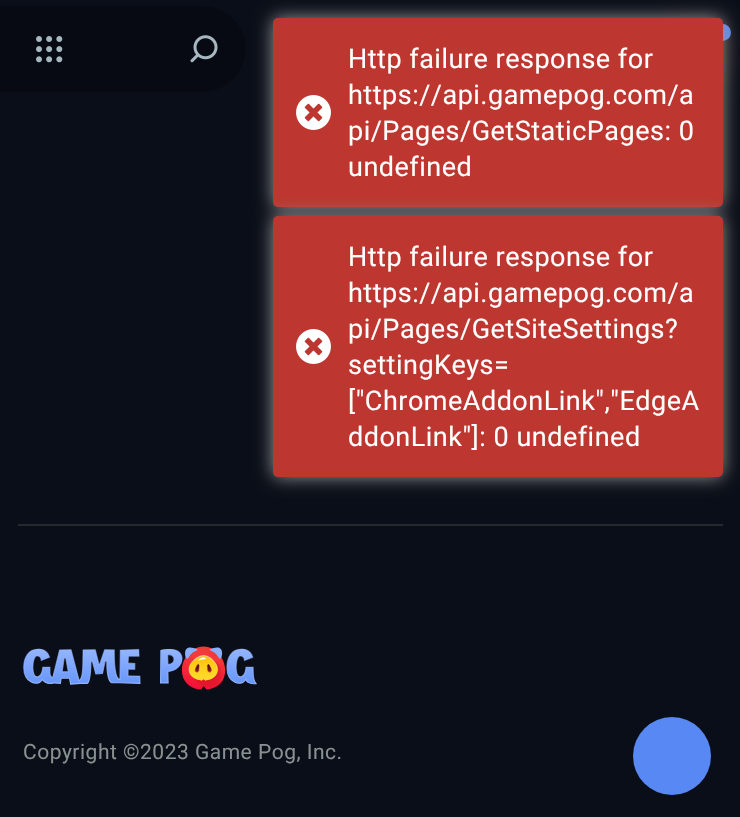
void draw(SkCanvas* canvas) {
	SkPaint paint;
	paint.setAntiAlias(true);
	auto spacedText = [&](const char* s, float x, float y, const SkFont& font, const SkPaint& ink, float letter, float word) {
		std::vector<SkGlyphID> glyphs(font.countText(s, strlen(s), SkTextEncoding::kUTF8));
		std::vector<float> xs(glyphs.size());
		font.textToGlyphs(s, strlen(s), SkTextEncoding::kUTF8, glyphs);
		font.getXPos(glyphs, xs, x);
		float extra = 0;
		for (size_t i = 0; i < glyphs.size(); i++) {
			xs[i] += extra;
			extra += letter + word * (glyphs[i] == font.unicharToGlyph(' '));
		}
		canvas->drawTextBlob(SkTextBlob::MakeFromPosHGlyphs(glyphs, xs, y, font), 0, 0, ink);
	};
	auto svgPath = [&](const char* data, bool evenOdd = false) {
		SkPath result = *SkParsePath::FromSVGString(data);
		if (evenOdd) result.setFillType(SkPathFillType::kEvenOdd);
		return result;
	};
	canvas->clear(0xff0a0e18);
	paint.setColor(0xff070a13);
	canvas->drawPath(svgPath("M0 6H203C226.5 6 246 25.5 246 49C246 72.5 226.5 92 203 92H0Z"), paint);
	paint.setColor(0x4dff655b);
	paint.setMaskFilter(SkMaskFilter::MakeBlur(kNormal_SkBlurStyle, 15));
	canvas->drawRoundRect(SkRect::MakeXYWH(671, 30, 48, 48), 24, 24, paint);
	paint.setMaskFilter(nullptr);
	paint.setColor(0xff5888f4);
	canvas->drawRoundRect(SkRect::MakeXYWH(710, 24, 21, 17), 8.5, 8.5, paint);
	paint.setColor(0xff999999);
	paint.setMaskFilter(SkMaskFilter::MakeBlur(kNormal_SkBlurStyle, 9));
	canvas->drawRoundRect(SkRect::MakeXYWH(273, 18, 450, 189), 5, 5, paint);
	paint.setMaskFilter(nullptr);
	paint.setColor(0xffbd362f);
	canvas->drawRoundRect(SkRect::MakeXYWH(273, 18, 450, 189), 5, 5, paint);
	canvas->drawImageRect(SkImages::DeferredFromEncodedData(SkData::MakeFromFileName("img1.png")), SkRect::MakeXYWH(296, 95, 35, 35), SkSamplingOptions());
	SkFont f1(fontMgr->matchFamilyStyle("Roboto", SkFontStyle::Normal()), 27);
	f1.setSubpixel(true);
	paint.setColor(0xffffffff);
	spacedText("Http failure response for", 348, 68, f1, paint, 0.5, 0);
	spacedText("https://api.gamepog.com/a", 348, 104, f1, paint, 0.5, 0);
	spacedText("pi/Pages/GetStaticPages: 0", 348, 140, f1, paint, 0.5, 0);
	spacedText("undefined", 348, 176, f1, paint, 0.5, 0);
	paint.setColor(0xff999999);
	paint.setMaskFilter(SkMaskFilter::MakeBlur(kNormal_SkBlurStyle, 9));
	canvas->drawRoundRect(SkRect::MakeXYWH(273, 216, 450, 261), 5, 5, paint);
	paint.setMaskFilter(nullptr);
	paint.setColor(0xffbd362f);
	canvas->drawRoundRect(SkRect::MakeXYWH(273, 216, 450, 261), 5, 5, paint);
	canvas->drawImageRect(SkImages::DeferredFromEncodedData(SkData::MakeFromFileName("img1.png")), SkRect::MakeXYWH(296, 329, 35, 35), SkSamplingOptions());
	paint.setColor(0xffffffff);
	spacedText("Http failure response for", 348, 266, f1, paint, 0.5, 0);
	spacedText("https://api.gamepog.com/a", 348, 302, f1, paint, 0.5, 0);
	spacedText("pi/Pages/GetSiteSettings?", 348, 338, f1, paint, 0.5, 0);
	spacedText("settingKeys=", 348, 374, f1, paint, 0.5, 0);
	spacedText("[\"ChromeAddonLink\",\"EdgeA", 348, 410, f1, paint, 0.5, 0);
	spacedText("ddonLink\"]: 0 undefined", 348, 446, f1, paint, 0.5, 0);
	canvas->drawImageRect(SkImages::DeferredFromEncodedData(SkData::MakeFromFileName("img2.png")), SkRect::MakeXYWH(36, 36, 27, 27), SkSamplingOptions());
	canvas->drawImageRect(SkImages::DeferredFromEncodedData(SkData::MakeFromFileName("img3.png")), SkRect::MakeXYWH(190, 35, 28, 28), SkSamplingOptions());
	paint.setColor(0xff252a2f);
	canvas->drawRect(SkRect::MakeXYWH(18, 524, 705, 2), paint);
	canvas->drawImageRect(SkImages::DeferredFromEncodedData(SkData::MakeFromFileName("img4.png")), SkRect::MakeXYWH(23, 646, 234, 44), SkSamplingOptions());
	SkFont f2(fontMgr->matchFamilyStyle("Roboto", SkFontStyle::Normal()), 21);
	f2.setSubpixel(true);
	paint.setColor(0xff889090);
	spacedText("Copyright ©2023 Game Pog, Inc.", 23, 759, f2, paint, 0.5, 0);
	paint.setColor(0xff5888f4);
	canvas->drawCircle(672, 756, 39, paint);
}
